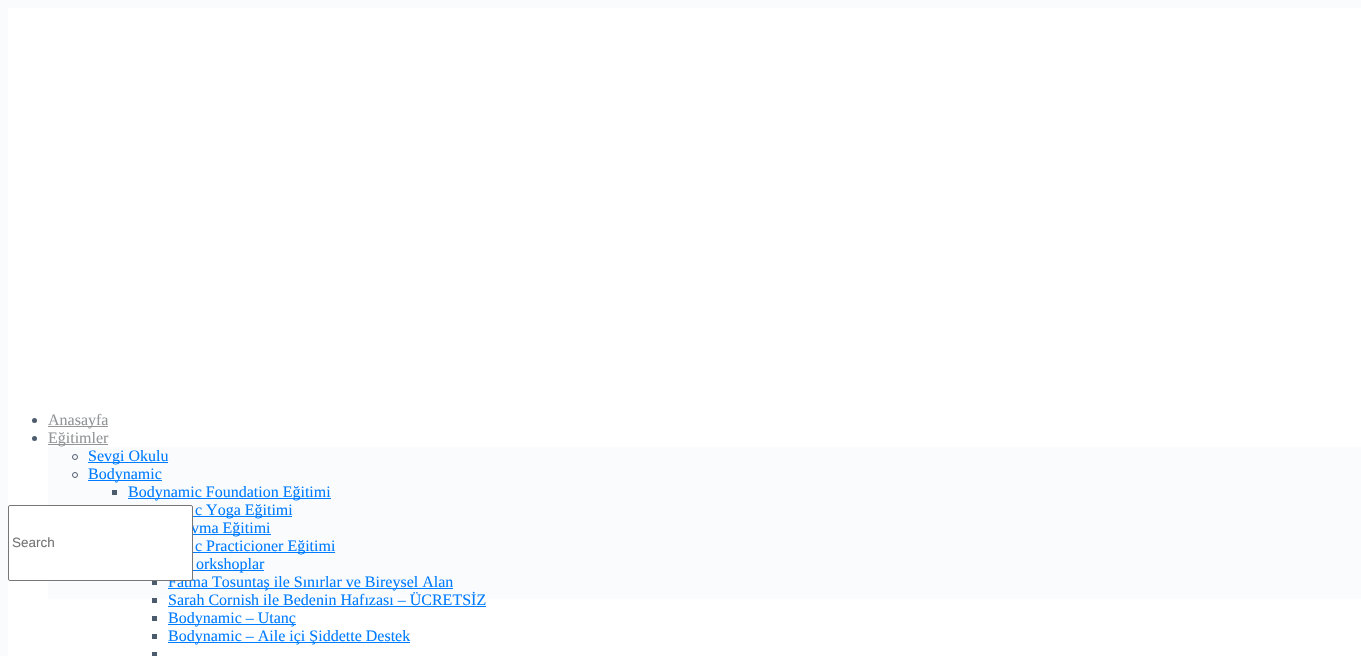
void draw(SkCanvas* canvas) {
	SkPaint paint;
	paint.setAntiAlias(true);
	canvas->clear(0xfffafbfd);
	paint.setColor(0xffffffff);
	canvas->drawRect(SkRect::MakeXYWH(8, 8, 1353, 648), paint);
	paint.setColor(0xfffafbfd);
	canvas->drawRect(SkRect::MakeXYWH(48, 447, 1313, 152), paint);
	paint.setColor(0xff007cff);
	canvas->drawRect(SkRect::MakeXYWH(193, 534, 78, 1), paint);
	SkFont f1(fontMgr->matchFamilyStyle("Liberation Serif", SkFontStyle::Normal()), 16);
	f1.setSubpixel(true);
	canvas->drawString("vma Eğitimi", 191, 533, f1, paint);
	canvas->drawRect(SkRect::MakeXYWH(168, 588, 285, 1), paint);
	canvas->drawString("Fatma Tosuntaş ile Sınırlar ve Bireysel Alan", 168, 587, f1, paint);
	paint.setColor(0xffffffff);
	canvas->drawRoundRect(SkRect::MakeXYWH(8.5, 505.5, 184, 75), 1.5, 1.5, paint);
	paint.setStroke(true);
	paint.setStrokeWidth(1);
	paint.setColor(0xff767676);
	canvas->drawRoundRect(SkRect::MakeXYWH(8.5, 505.5, 184, 75), 1.5, 1.5, paint);
	SkFont f2(fontMgr->matchFamilyStyle("Liberation Sans", SkFontStyle::Normal()), 13.5);
	f2.setSubpixel(true);
	paint.setStroke(false);
	paint.setColor(0xff757575);
	canvas->drawString("Search", 12, 547, f2, paint);
	paint.setColor(0xff4d5c6d);
	canvas->drawCircle(34.5, 420.5, 2.5, paint);
	paint.setColor(0xff939597);
	canvas->drawRect(SkRect::MakeXYWH(48, 426, 60, 1), paint);
	canvas->drawString("Anasayfa", 48, 425, f1, paint);
	paint.setColor(0xff4d5c6d);
	canvas->drawCircle(34.5, 438.5, 2.5, paint);
	paint.setColor(0xff939597);
	canvas->drawRect(SkRect::MakeXYWH(48, 444, 60, 1), paint);
	canvas->drawString("Eğitimler", 48, 443, f1, paint);
	paint.setStroke(true);
	paint.setColor(0xff4d5c6d);
	canvas->drawCircle(75, 457, 2.5, paint);
	paint.setStroke(false);
	paint.setColor(0xff007cff);
	canvas->drawRect(SkRect::MakeXYWH(88, 462, 80, 1), paint);
	canvas->drawString("Sevgi Okulu", 88, 461, f1, paint);
	paint.setStroke(true);
	paint.setColor(0xff4d5c6d);
	canvas->drawCircle(75, 475, 2.5, paint);
	paint.setStroke(false);
	paint.setColor(0xff007cff);
	canvas->drawRect(SkRect::MakeXYWH(88, 480, 74, 1), paint);
	canvas->drawString("Bodynamic", 88, 479, f1, paint);
	paint.setColor(0xff4d5c6d);
	canvas->drawRect(SkRect::MakeXYWH(112, 490, 5, 5), paint);
	paint.setColor(0xff007cff);
	canvas->drawRect(SkRect::MakeXYWH(128, 498, 203, 1), paint);
	canvas->drawString("Bodynamic Foundation Eğitimi", 128, 497, f1, paint);
	canvas->drawRect(SkRect::MakeXYWH(193, 516, 99, 1), paint);
	canvas->drawString("c Yoga Eğitimi", 195, 515, f1, paint);
	canvas->drawRect(SkRect::MakeXYWH(193, 552, 142, 1), paint);
	canvas->drawString("c Practicioner Eğitimi", 195, 551, f1, paint);
	canvas->drawRect(SkRect::MakeXYWH(193, 570, 71, 1), paint);
	canvas->drawString("orkshoplar", 196, 569, f1, paint);
	paint.setColor(0xff4d5c6d);
	canvas->drawRect(SkRect::MakeXYWH(152, 581, 5, 4), paint);
	canvas->drawRect(SkRect::MakeXYWH(152, 598, 5, 5), paint);
	paint.setColor(0xff007cff);
	canvas->drawString("Sarah Cornish ile Bedenin Hafızası – ÜCRETSİZ", 168, 605, f1, paint);
	canvas->drawRect(SkRect::MakeXYWH(168, 606, 318, 1), paint);
	paint.setColor(0xff4d5c6d);
	canvas->drawRect(SkRect::MakeXYWH(152, 616, 5, 5), paint);
	paint.setColor(0xff007cff);
	canvas->drawRect(SkRect::MakeXYWH(168, 624, 128, 1), paint);
	canvas->drawString("Bodynamic – Utanç", 168, 623, f1, paint);
	paint.setColor(0xff4d5c6d);
	canvas->drawRect(SkRect::MakeXYWH(152, 634, 5, 5), paint);
	paint.setColor(0xff007cff);
	canvas->drawRect(SkRect::MakeXYWH(168, 642, 242, 1), paint);
	canvas->drawString("Bodynamic – Aile içi Şiddette Destek", 168, 641, f1, paint);
	paint.setColor(0xff4d5c6d);
	canvas->drawRect(SkRect::MakeXYWH(152, 652, 5, 4), paint);
}
